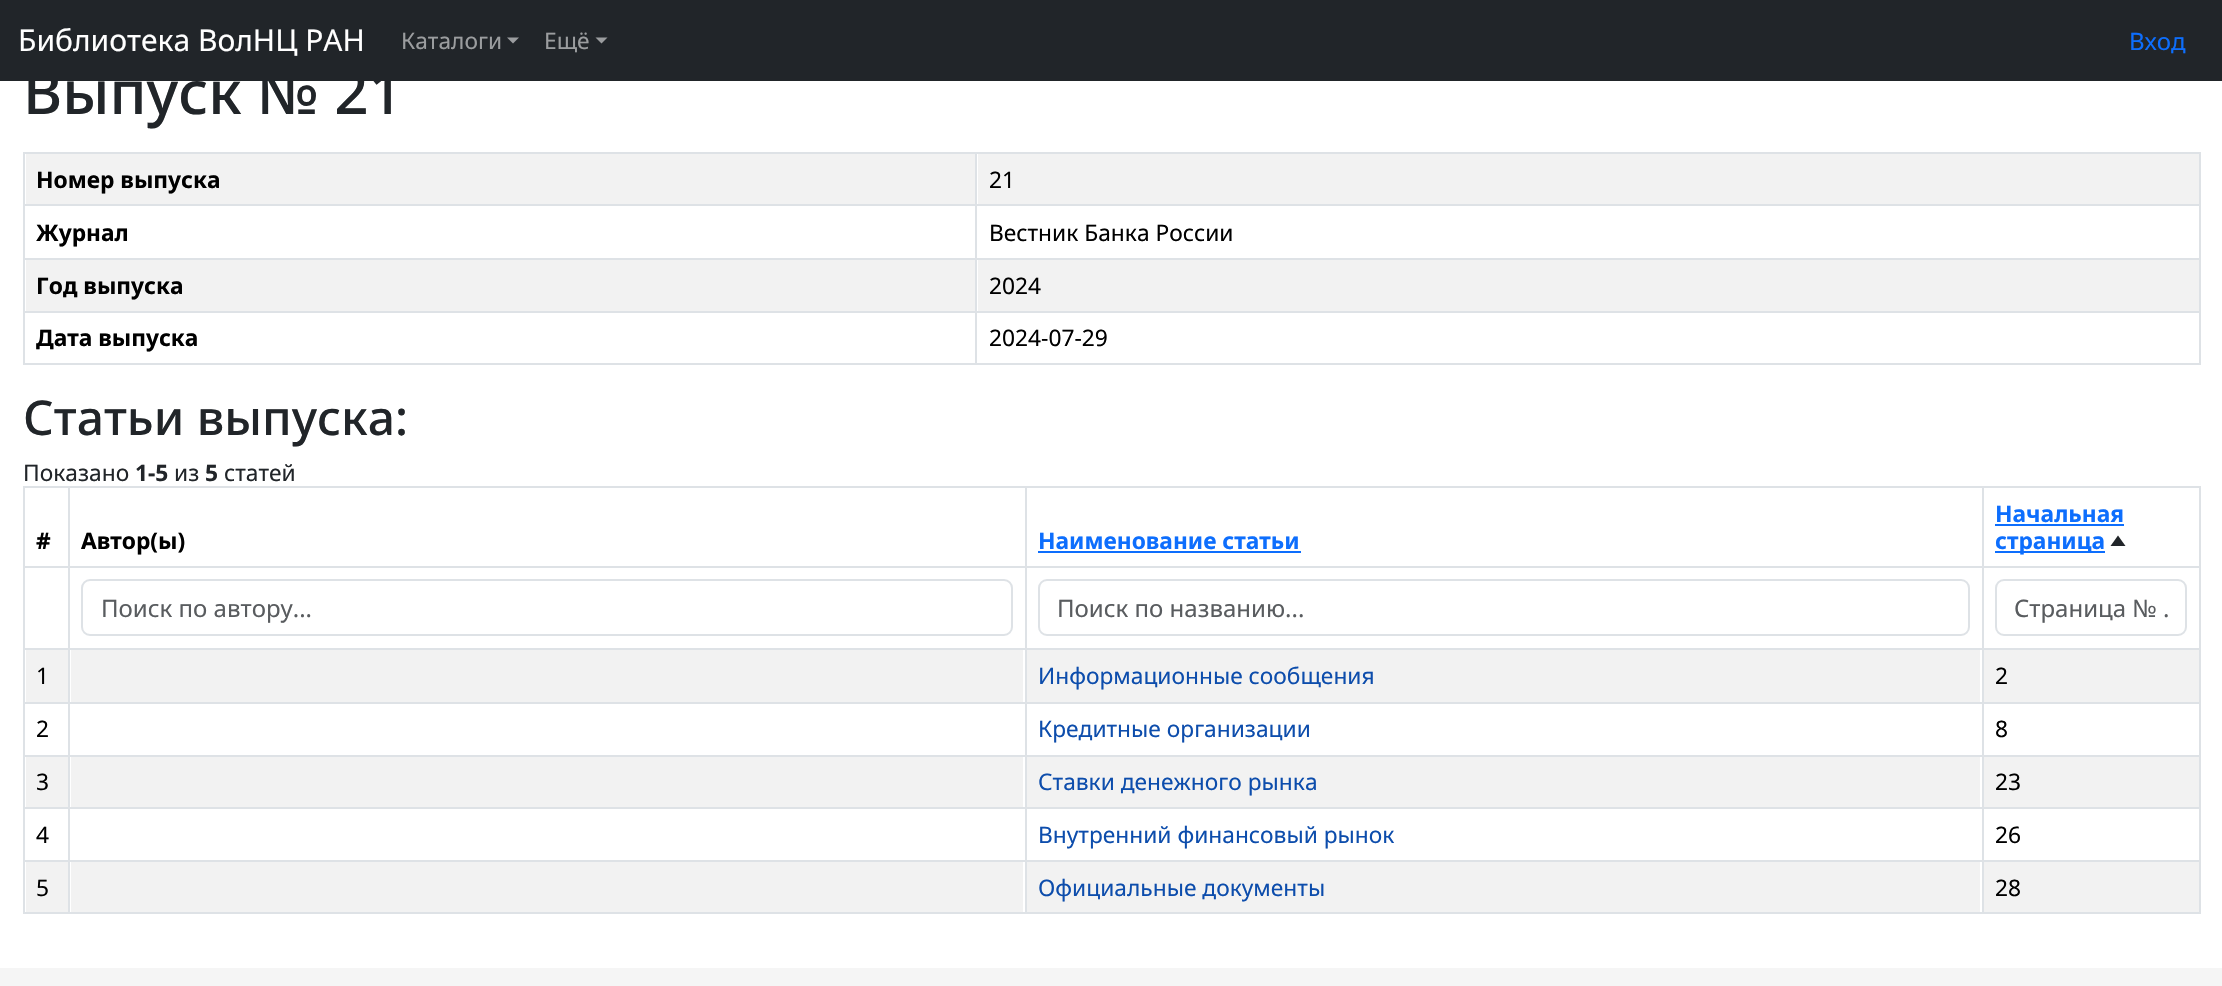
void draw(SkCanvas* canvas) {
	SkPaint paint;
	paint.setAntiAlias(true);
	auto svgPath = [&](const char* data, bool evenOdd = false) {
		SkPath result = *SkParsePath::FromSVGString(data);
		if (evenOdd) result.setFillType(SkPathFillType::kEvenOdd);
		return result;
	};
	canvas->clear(0xffffffff);
	paint.setColor(0xff212529);
	canvas->drawRect(SkRect::MakeXYWH(0, 0, 2222, 81), paint);
	SkFont f1(fontMgr->matchFamilyStyle("Noto Sans", SkFontStyle::Normal()), 30);
	f1.setSubpixel(true);
	paint.setColor(0xffffffff);
	canvas->drawString("Библиотека ВолНЦ РАН", 18, 51, f1, paint);
	SkFont f2(fontMgr->matchFamilyStyle("Noto Sans", SkFontStyle::Normal()), 22.75);
	f2.setSubpixel(true);
	paint.setColor(0xff9b9d9f);
	canvas->drawString("Каталоги", 401, 49, f2, paint);
	canvas->drawPath(svgPath("M507 37.5H519L513 43.5Z"), paint);
	canvas->drawString("Ещё", 544, 49, f2, paint);
	canvas->drawPath(svgPath("M595.5 37.5H607.5L601.5 43.5Z"), paint);
	SkFont f3(fontMgr->matchFamilyStyle("Noto Sans", SkFontStyle::Normal()), 24);
	f3.setSubpixel(true);
	paint.setColor(0xff0d6efd);
	canvas->drawString("Вход", 2129, 50, f3, paint);
	SkFont f4(fontMgr->matchFamilyStyle("Noto Sans", SkFontStyle(500, SkFontStyle::kNormal_Width, SkFontStyle::kUpright_Slant)), 60);
	f4.setSubpixel(true);
	paint.setColor(0xff212529);
	canvas->drawString("Выпуск № 21", 23, 114, f4, paint);
	paint.setColor(0xffdee2e6);
	canvas->drawRect(SkRect::MakeXYWH(23, 152, 2178, 2), paint);
	paint.setColor(0xfff2f2f2);
	canvas->drawRect(SkRect::MakeXYWH(26, 154, 949, 50), paint);
	SkFont f5(fontMgr->matchFamilyStyle("Noto Sans", SkFontStyle::Bold()), 22.75);
	f5.setSubpixel(true);
	paint.setColor(0xff000000);
	canvas->drawString("Номер выпуска", 36, 188, f5, paint);
	paint.setColor(0xfff2f2f2);
	canvas->drawRect(SkRect::MakeXYWH(978, 154, 1221, 50), paint);
	paint.setColor(0xff000000);
	canvas->drawString("21", 989, 188, f2, paint);
	paint.setColor(0xffdee2e6);
	canvas->drawRect(SkRect::MakeXYWH(23, 204, 2178, 2), paint);
	paint.setColor(0xff000000);
	canvas->drawString("Журнал", 36, 241, f5, paint);
	canvas->drawString("Вестник Банка России", 989, 241, f2, paint);
	paint.setColor(0xffdee2e6);
	canvas->drawRect(SkRect::MakeXYWH(23, 258, 2178, 2), paint);
	paint.setColor(0xfff2f2f2);
	canvas->drawRect(SkRect::MakeXYWH(26, 260, 949, 51), paint);
	paint.setColor(0xff000000);
	canvas->drawString("Год выпуска", 36, 294, f5, paint);
	paint.setColor(0xfff2f2f2);
	canvas->drawRect(SkRect::MakeXYWH(978, 260, 1221, 51), paint);
	paint.setColor(0xff000000);
	canvas->drawString("2024", 989, 294, f2, paint);
	paint.setColor(0xffdee2e6);
	canvas->drawRect(SkRect::MakeXYWH(23, 311, 2178, 2), paint);
	canvas->drawRect(SkRect::MakeXYWH(23, 363, 2178, 2), paint);
	canvas->drawRect(SkRect::MakeXYWH(23, 152, 2, 213), paint);
	paint.setColor(0xff000000);
	canvas->drawString("Дата выпуска", 36, 346, f5, paint);
	paint.setColor(0xffdee2e6);
	canvas->drawRect(SkRect::MakeXYWH(2199, 152, 2, 213), paint);
	canvas->drawRect(SkRect::MakeXYWH(975, 152, 2, 213), paint);
	paint.setColor(0xff000000);
	canvas->drawString("2024-07-29", 989, 346, f2, paint);
	SkFont f6(fontMgr->matchFamilyStyle("Noto Sans", SkFontStyle(500, SkFontStyle::kNormal_Width, SkFontStyle::kUpright_Slant)), 48);
	f6.setSubpixel(true);
	paint.setColor(0xff212529);
	canvas->drawString("Статьи выпуска:", 23, 435, f6, paint);
	canvas->drawString("Показано", 23, 481, f2, paint);
	canvas->drawString("1-5", 135, 481, f5, paint);
	canvas->drawString("из", 174, 481, f2, paint);
	canvas->drawString("5", 205, 481, f5, paint);
	canvas->drawString("статей", 224, 481, f2, paint);
	paint.setColor(0xffdee2e6);
	canvas->drawRect(SkRect::MakeXYWH(23, 486, 2178, 2), paint);
	paint.setColor(0xff000000);
	canvas->drawString("#", 36, 549, f5, paint);
	canvas->drawString("Автор(ы)", 81, 549, f5, paint);
	paint.setColor(0xff0d6efd);
	canvas->drawString("Наименование статьи", 1038, 549, f5, paint);
	canvas->drawRect(SkRect::MakeXYWH(1038, 551, 263, 2), paint);
	canvas->drawString("Начальная", 1995, 522, f5, paint);
	canvas->drawRect(SkRect::MakeXYWH(1995, 524, 129, 2), paint);
	canvas->drawRect(SkRect::MakeXYWH(1995, 551, 110, 2), paint);
	canvas->drawString("страница", 1995, 549, f5, paint);
	paint.setColor(0xff212529);
	canvas->drawPath(svgPath("M2125.5 546H2110.5L2118 535.5Z"), paint);
	paint.setColor(0xffdee2e6);
	canvas->drawRect(SkRect::MakeXYWH(23, 566, 2178, 2), paint);
	paint.setStroke(true);
	paint.setStrokeWidth(2);
	canvas->drawRoundRect(SkRect::MakeXYWH(82, 580, 930, 55), 8, 8, paint);
	paint.setStroke(false);
	paint.setColor(0xff595c5f);
	canvas->drawString("Поиск по автору...", 101, 617, f3, paint);
	paint.setStroke(true);
	paint.setColor(0xffdee2e6);
	canvas->drawRoundRect(SkRect::MakeXYWH(1039, 580, 930, 55), 8, 8, paint);
	paint.setStroke(false);
	paint.setColor(0xff595c5f);
	canvas->drawString("Поиск по названию...", 1057, 617, f3, paint);
	paint.setStroke(true);
	paint.setColor(0xffdee2e6);
	canvas->drawRoundRect(SkRect::MakeXYWH(1996, 580, 190, 55), 8, 8, paint);
	paint.setStroke(false);
	paint.setColor(0xff595c5f);
	canvas->drawString("Страница № .", 2014, 617, f3, paint);
	paint.setColor(0xffdee2e6);
	canvas->drawRect(SkRect::MakeXYWH(23, 648, 2178, 2), paint);
	paint.setColor(0xfff2f2f2);
	canvas->drawRect(SkRect::MakeXYWH(26, 650, 42, 52), paint);
	paint.setColor(0xff000000);
	canvas->drawString("1", 36, 684, f2, paint);
	paint.setColor(0xfff2f2f2);
	canvas->drawRect(SkRect::MakeXYWH(71, 650, 952, 52), paint);
	canvas->drawRect(SkRect::MakeXYWH(1027, 650, 953, 52), paint);
	paint.setColor(0xff0d4dac);
	canvas->drawString("Информационные сообщения", 1038, 684, f2, paint);
	paint.setColor(0xfff2f2f2);
	canvas->drawRect(SkRect::MakeXYWH(1984, 650, 215, 52), paint);
	paint.setColor(0xff000000);
	canvas->drawString("2", 1995, 684, f2, paint);
	paint.setColor(0xffdee2e6);
	canvas->drawRect(SkRect::MakeXYWH(23, 702, 2178, 2), paint);
	paint.setColor(0xff000000);
	canvas->drawString("2", 36, 737, f2, paint);
	paint.setColor(0xff0d4dac);
	canvas->drawString("Кредитные организации", 1038, 737, f2, paint);
	paint.setColor(0xff000000);
	canvas->drawString("8", 1995, 737, f2, paint);
	paint.setColor(0xffdee2e6);
	canvas->drawRect(SkRect::MakeXYWH(23, 755, 2178, 2), paint);
	paint.setColor(0xfff2f2f2);
	canvas->drawRect(SkRect::MakeXYWH(26, 757, 42, 50), paint);
	paint.setColor(0xff000000);
	canvas->drawString("3", 36, 790, f2, paint);
	paint.setColor(0xfff2f2f2);
	canvas->drawRect(SkRect::MakeXYWH(71, 757, 952, 50), paint);
	canvas->drawRect(SkRect::MakeXYWH(1027, 757, 953, 50), paint);
	paint.setColor(0xff0d4dac);
	canvas->drawString("Ставки денежного рынка", 1038, 790, f2, paint);
	paint.setColor(0xfff2f2f2);
	canvas->drawRect(SkRect::MakeXYWH(1984, 757, 215, 50), paint);
	paint.setColor(0xff000000);
	canvas->drawString("23", 1995, 790, f2, paint);
	paint.setColor(0xffdee2e6);
	canvas->drawRect(SkRect::MakeXYWH(23, 807, 2178, 2), paint);
	paint.setColor(0xff000000);
	canvas->drawString("4", 36, 843, f2, paint);
	paint.setColor(0xff0d4dac);
	canvas->drawString("Внутренний финансовый рынок", 1038, 843, f2, paint);
	paint.setColor(0xff000000);
	canvas->drawString("26", 1995, 843, f2, paint);
	paint.setColor(0xffdee2e6);
	canvas->drawRect(SkRect::MakeXYWH(23, 860, 2178, 2), paint);
	canvas->drawRect(SkRect::MakeXYWH(23, 912, 2178, 2), paint);
	paint.setColor(0xfff2f2f2);
	canvas->drawRect(SkRect::MakeXYWH(26, 862, 42, 50), paint);
	paint.setColor(0xffdee2e6);
	canvas->drawRect(SkRect::MakeXYWH(23, 486, 2, 428), paint);
	paint.setColor(0xff000000);
	canvas->drawString("5", 36, 896, f2, paint);
	paint.setColor(0xfff2f2f2);
	canvas->drawRect(SkRect::MakeXYWH(71, 862, 952, 50), paint);
	paint.setColor(0xffdee2e6);
	canvas->drawRect(SkRect::MakeXYWH(68, 486, 2, 428), paint);
	paint.setColor(0xfff2f2f2);
	canvas->drawRect(SkRect::MakeXYWH(1027, 862, 953, 50), paint);
	paint.setColor(0xffdee2e6);
	canvas->drawRect(SkRect::MakeXYWH(1025, 486, 2, 428), paint);
	paint.setColor(0xff0d4dac);
	canvas->drawString("Официальные документы", 1038, 896, f2, paint);
	paint.setColor(0xfff2f2f2);
	canvas->drawRect(SkRect::MakeXYWH(1984, 862, 215, 50), paint);
	paint.setColor(0xffdee2e6);
	canvas->drawRect(SkRect::MakeXYWH(2199, 486, 2, 428), paint);
	canvas->drawRect(SkRect::MakeXYWH(1982, 486, 2, 428), paint);
	paint.setColor(0xff000000);
	canvas->drawString("28", 1995, 896, f2, paint);
	paint.setColor(0xfff5f5f5);
	canvas->drawRect(SkRect::MakeXYWH(0, 968, 2222, 18), paint);
}
